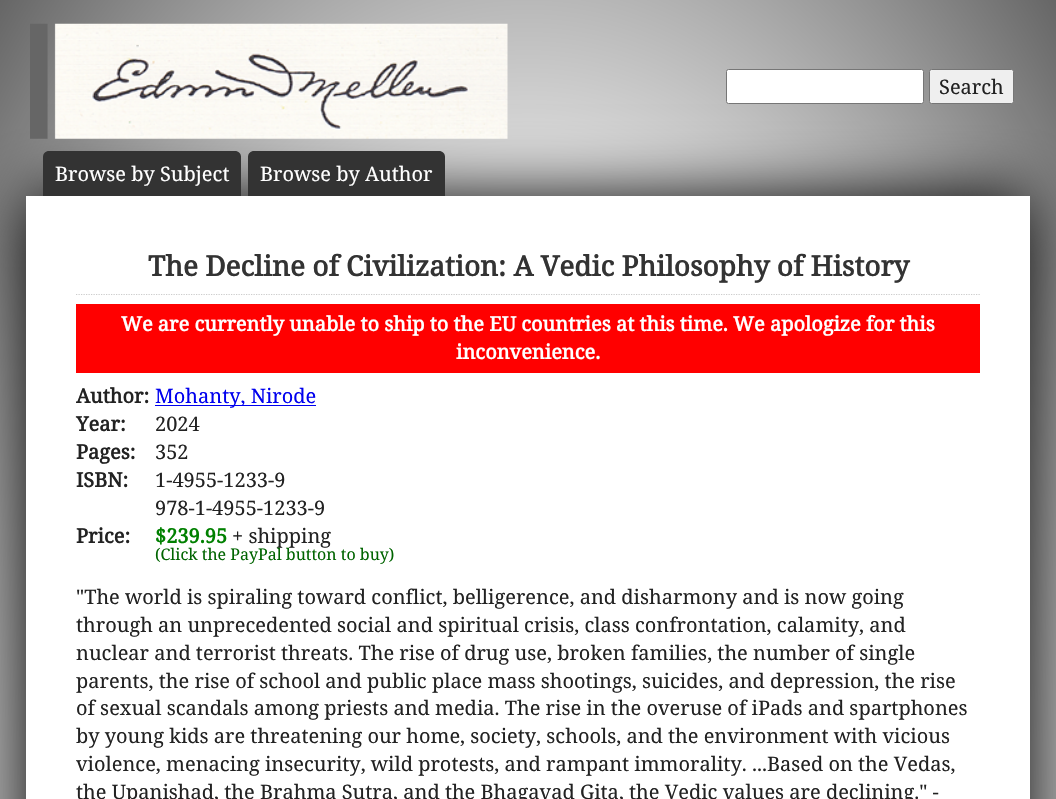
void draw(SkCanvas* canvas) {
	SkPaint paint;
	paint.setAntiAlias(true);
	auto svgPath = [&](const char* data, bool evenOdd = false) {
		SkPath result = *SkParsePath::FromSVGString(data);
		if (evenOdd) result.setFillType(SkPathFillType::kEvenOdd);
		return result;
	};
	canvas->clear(0xffffffff);
	{
		const SkColor colors[] = {0xffe4f5fc, 0xffededed, 0xff666666};
		const float stops[] = {0, 0.52, 1};
		SkMatrix m = SkMatrix::Translate(528, 898).preScale(747, 1270);
		paint.setShader(SkGradientShader::MakeRadial({0, 0}, 1, colors, stops, 3, SkTileMode::kClamp, 0, &m));
		paint.setAlpha(255);
	}
	canvas->drawRect(SkRect::MakeXYWH(0, 0, 1056, 799), paint);
	paint.setShader(nullptr);
	paint.setColor(0xff000000);
	paint.setMaskFilter(SkMaskFilter::MakeBlur(kNormal_SkBlurStyle, 31));
	canvas->drawRect(SkRect::MakeXYWH(26, 196, 1004, 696), paint);
	paint.setMaskFilter(nullptr);
	canvas->drawImageRect(SkImages::DeferredFromEncodedData(SkData::MakeFromFileName("img1.png")), SkRect::MakeXYWH(30, 23, 478, 116), SkSamplingOptions());
	paint.setColor(0xffffffff);
	canvas->drawRoundRect(SkRect::MakeXYWH(726.5, 69.5, 197, 34), 2, 2, paint);
	paint.setStroke(true);
	paint.setStrokeWidth(1);
	paint.setColor(0xff767676);
	canvas->drawRoundRect(SkRect::MakeXYWH(726.5, 69.5, 197, 34), 2, 2, paint);
	paint.setStroke(false);
	paint.setColor(0xffefefef);
	canvas->drawRoundRect(SkRect::MakeXYWH(929.5, 69.5, 84, 34), 2, 2, paint);
	paint.setStroke(true);
	paint.setColor(0xff767676);
	canvas->drawRoundRect(SkRect::MakeXYWH(929.5, 69.5, 84, 34), 2, 2, paint);
	SkFont f1(fontMgr->matchFamilyStyle("Noto Serif", SkFontStyle::Normal()), 20);
	f1.setSubpixel(true);
	paint.setStroke(false);
	paint.setColor(0xff222222);
	canvas->drawString("Search", 939, 94, f1, paint);
	paint.setColor(0xff333333);
	canvas->drawPath(svgPath("M49 151H235C238.5 151 241 153.5 241 157V196H43V157C43 153.5 45.5 151 49 151Z"), paint);
	paint.setColor(0xffffffff);
	canvas->drawString("Browse by Subject", 55, 181, f1, paint);
	paint.setColor(0xff333333);
	canvas->drawPath(svgPath("M254 151H439C442.5 151 445 153.5 445 157V196H248V157C248 153.5 250.5 151 254 151Z"), paint);
	paint.setColor(0xffffffff);
	canvas->drawString("Browse by Author", 260, 181, f1, paint);
	canvas->drawRect(SkRect::MakeXYWH(26, 196, 1004, 603), paint);
	paint.setStroke(true);
	paint.setStrokeWidth(1.2);
	paint.setColor(0xffcccccc);
	paint.setPathEffect(SkDashPathEffect::Make({{1.25f, 1.25f}}, 0));
	canvas->drawPath(svgPath("M76 294.5H980"), paint);
	paint.setPathEffect(nullptr);
	SkFont f2(fontMgr->matchFamilyStyle("Noto Serif", SkFontStyle::Bold()), 28);
	f2.setSubpixel(true);
	paint.setStroke(false);
	paint.setColor(0xff333333);
	canvas->drawString("The Decline of Civilization: A Vedic Philosophy of History", 148, 276, f2, paint);
	paint.setColor(0xffff0000);
	canvas->drawRect(SkRect::MakeXYWH(76, 304, 904, 69), paint);
	SkFont f3(fontMgr->matchFamilyStyle("Noto Serif", SkFontStyle::Bold()), 20);
	f3.setSubpixel(true);
	paint.setColor(0xffffffff);
	canvas->drawString("We are currently unable to ship to the EU countries at this time. We apologize for this", 121, 331, f3, paint);
	canvas->drawString("inconvenience.", 456, 359, f3, paint);
	paint.setColor(0xff222222);
	canvas->drawString("Author:", 76, 403, f3, paint);
	paint.setColor(0xff0000ee);
	canvas->drawRect(SkRect::MakeXYWH(155, 405, 161, 1), paint);
	canvas->drawString("Mohanty, Nirode", 155, 403, f1, paint);
	paint.setColor(0xff222222);
	canvas->drawString("Year:", 76, 431, f3, paint);
	canvas->drawString("2024", 155, 431, f1, paint);
	canvas->drawString("Pages:", 76, 459, f3, paint);
	canvas->drawString("352", 155, 459, f1, paint);
	canvas->drawString("ISBN:", 76, 487, f3, paint);
	canvas->drawString("1-4955-1233-9", 155, 487, f1, paint);
	canvas->drawString("978-1-4955-1233-9", 155, 515, f1, paint);
	canvas->drawString("Price:", 76, 543, f3, paint);
	paint.setColor(0xff008000);
	canvas->drawString("$239.95", 155, 543, f3, paint);
	paint.setColor(0xff222222);
	canvas->drawString("+ shipping", 232, 543, f1, paint);
	SkFont f4(fontMgr->matchFamilyStyle("Noto Serif", SkFontStyle::Normal()), 16);
	f4.setSubpixel(true);
	paint.setColor(0xff006400);
	canvas->drawString("(Click the PayPal button to buy)", 155, 560, f4, paint);
	paint.setColor(0xff222222);
	canvas->drawString("\"The world is spiraling toward conflict, belligerence, and disharmony and is now going", 76, 604, f1, paint);
	canvas->drawString("through an unprecedented social and spiritual crisis, class confrontation, calamity, and", 76, 632, f1, paint);
	canvas->drawString("nuclear and terrorist threats. The rise of drug use, broken families, the number of single", 76, 660, f1, paint);
	canvas->drawString("parents, the rise of school and public place mass shootings, suicides, and depression, the rise", 76, 688, f1, paint);
	canvas->drawString("of sexual scandals among priests and media. The rise in the overuse of iPads and spartphones", 76, 715, f1, paint);
	canvas->drawString("by young kids are threatening our home, society, schools, and the environment with vicious", 76, 743, f1, paint);
	canvas->drawString("violence, menacing insecurity, wild protests, and rampant immorality. ...Based on the Vedas,", 76, 771, f1, paint);
	canvas->drawString("the Upanishad, the Brahma Sutra, and the Bhagavad Gita, the Vedic values are declining.\" -", 76, 799, f1, paint);
}
